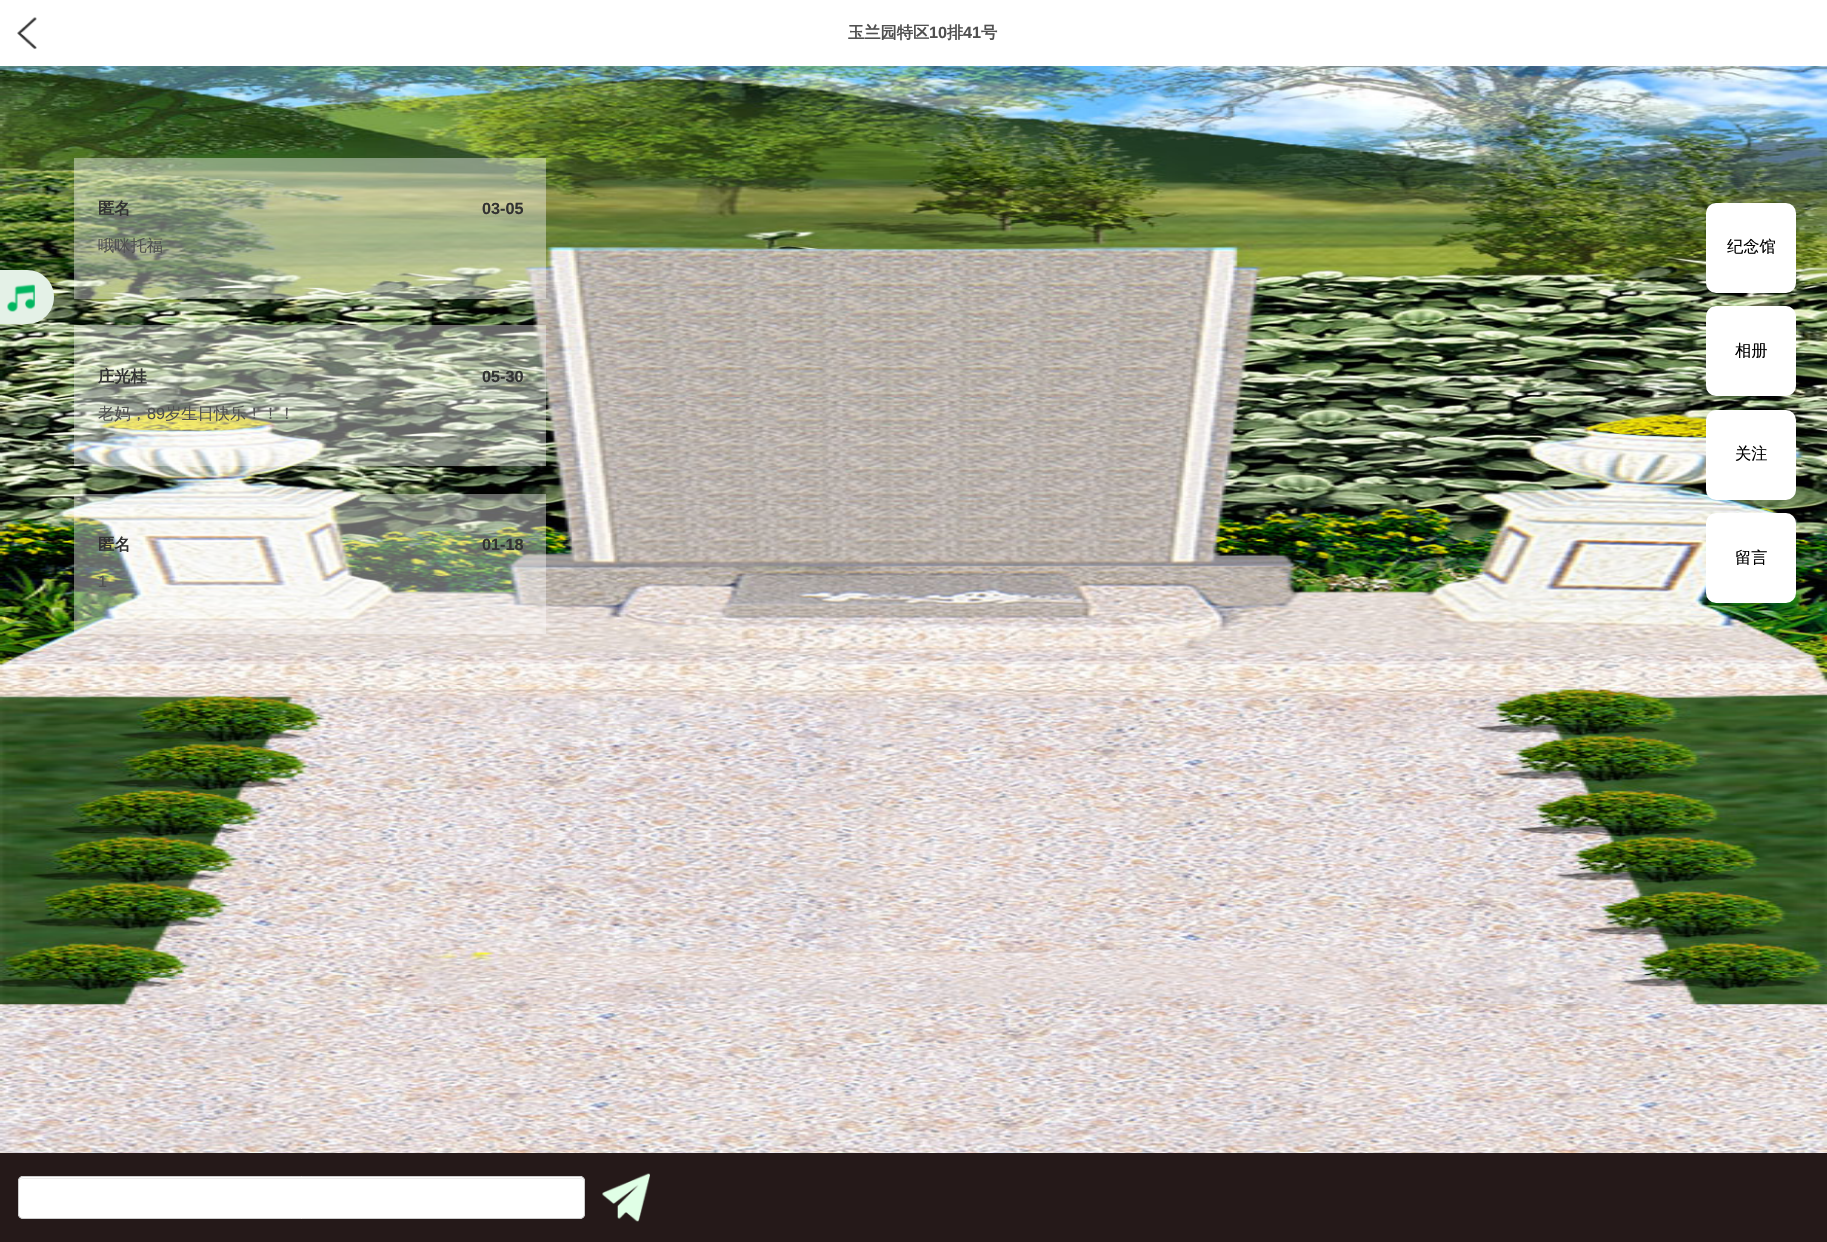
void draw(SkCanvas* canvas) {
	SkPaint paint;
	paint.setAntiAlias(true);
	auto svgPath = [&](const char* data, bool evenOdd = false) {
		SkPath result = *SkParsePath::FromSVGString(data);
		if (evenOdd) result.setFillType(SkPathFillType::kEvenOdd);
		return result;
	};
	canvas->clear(0xffffffff);
	canvas->drawImageRect(SkImages::DeferredFromEncodedData(SkData::MakeFromFileName("img1.png")), SkRect::MakeXYWH(17, 17, 20, 32), SkSamplingOptions());
	SkFont f1(fontMgr->matchFamilyStyle("WenQuanYi Zen Hei", SkFontStyle::Bold()), 16.25);
	f1.setSubpixel(true);
	paint.setColor(0xff505050);
	canvas->drawString("玉兰园特区", 848, 38, f1, paint);
	SkFont f2(fontMgr->matchFamilyStyle("Liberation Sans", SkFontStyle::Bold()), 16.25);
	f2.setSubpixel(true);
	canvas->drawString("10", 929, 38, f2, paint);
	canvas->drawString("排", 947, 38, f1, paint);
	canvas->drawString("41", 963, 38, f2, paint);
	canvas->drawString("号", 981, 38, f1, paint);
	canvas->drawImageRect(SkImages::DeferredFromEncodedData(SkData::MakeFromFileName("img2.png")), SkRect::MakeXYWH(0, 66, 1827, 1087), SkSamplingOptions());
	paint.setColor(0xffe4f1e7);
	canvas->drawPath(svgPath("M0 270H27C42 270 54 282 54 297C54 312 42 324 27 324H0Z"), paint);
	canvas->drawImageRect(SkImages::DeferredFromEncodedData(SkData::MakeFromFileName("img3.png")), SkRect::MakeXYWH(7, 284, 28, 28), SkSamplingOptions());
	paint.setColor(0x66ffffff);
	canvas->drawRect(SkRect::MakeXYWH(74, 158, 472, 141), paint);
	paint.setColor(0xff323232);
	canvas->drawString("匿名", 98, 214, f1, paint);
	canvas->drawString("03-05", 482, 214, f2, paint);
	SkFont f3(fontMgr->matchFamilyStyle("WenQuanYi Zen Hei", SkFontStyle(500, SkFontStyle::kNormal_Width, SkFontStyle::kUpright_Slant)), 16.25);
	f3.setSubpixel(true);
	paint.setColor(0xff505050);
	canvas->drawString("哦咪托福", 98, 251, f3, paint);
	paint.setColor(0x66ffffff);
	canvas->drawRect(SkRect::MakeXYWH(74, 325, 472, 141), paint);
	paint.setColor(0xff323232);
	canvas->drawString("庄光桂", 98, 382, f1, paint);
	canvas->drawString("05-30", 482, 382, f2, paint);
	paint.setColor(0xff505050);
	canvas->drawString("老妈，", 98, 419, f3, paint);
	SkFont f4(fontMgr->matchFamilyStyle("Liberation Sans", SkFontStyle::Normal()), 16.25);
	f4.setSubpixel(true);
	canvas->drawString("89", 147, 419, f4, paint);
	canvas->drawString("岁生日快乐！！！", 165, 419, f3, paint);
	paint.setColor(0x66ffffff);
	canvas->drawRect(SkRect::MakeXYWH(74, 494, 472, 140), paint);
	paint.setColor(0xff323232);
	canvas->drawString("匿名", 98, 550, f1, paint);
	canvas->drawString("01-18", 482, 550, f2, paint);
	paint.setColor(0xff505050);
	canvas->drawString("1", 98, 587, f4, paint);
	paint.setColor(0xffffffff);
	canvas->drawRoundRect(SkRect::MakeXYWH(1706, 203, 90, 90), 10, 10, paint);
	paint.setColor(0xff000000);
	canvas->drawString("纪念馆", 1727, 252, f3, paint);
	paint.setColor(0xffffffff);
	canvas->drawRoundRect(SkRect::MakeXYWH(1706, 306, 90, 90), 10, 10, paint);
	paint.setColor(0xff000000);
	canvas->drawString("相册", 1735, 356, f3, paint);
	paint.setColor(0xffffffff);
	canvas->drawRoundRect(SkRect::MakeXYWH(1706, 410, 90, 90), 10, 10, paint);
	paint.setColor(0xff000000);
	canvas->drawString("关注", 1735, 459, f3, paint);
	paint.setColor(0xffffffff);
	canvas->drawRoundRect(SkRect::MakeXYWH(1706, 513, 90, 90), 10, 10, paint);
	paint.setColor(0xff000000);
	canvas->drawString("留言", 1735, 563, f3, paint);
	paint.setColor(0xff251919);
	canvas->drawRect(SkRect::MakeXYWH(0, 1153, 1827, 89), paint);
	paint.setColor(0xffffffff);
	canvas->drawRoundRect(SkRect::MakeXYWH(18, 1176, 567, 43), 5, 5, paint);
	paint.setColor(0xffececec);
	canvas->drawPath(svgPath("M22 1179H580C582 1179 584 1180 584 1182C584 1180 582 1178 580 1178H23C22 1178 20 1179 20 1180Z"), paint);
	paint.setStroke(true);
	paint.setStrokeWidth(1);
	paint.setColor(0xffcccccc);
	canvas->drawRoundRect(SkRect::MakeXYWH(18.5, 1176.5, 566, 42), 4.5, 4.5, paint);
	canvas->drawImageRect(SkImages::DeferredFromEncodedData(SkData::MakeFromFileName("img4.png")), SkRect::MakeXYWH(602, 1173, 48, 49), SkSamplingOptions());
}
